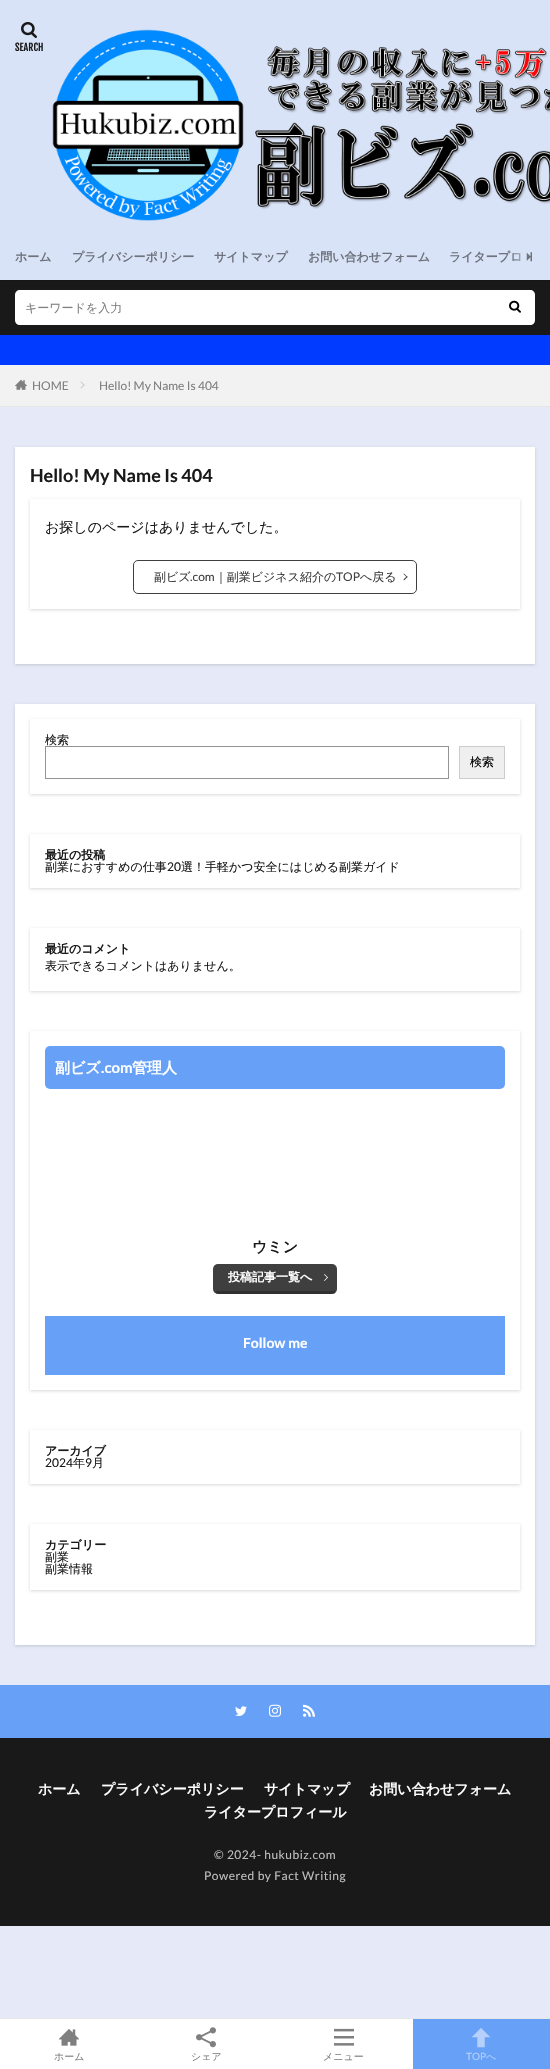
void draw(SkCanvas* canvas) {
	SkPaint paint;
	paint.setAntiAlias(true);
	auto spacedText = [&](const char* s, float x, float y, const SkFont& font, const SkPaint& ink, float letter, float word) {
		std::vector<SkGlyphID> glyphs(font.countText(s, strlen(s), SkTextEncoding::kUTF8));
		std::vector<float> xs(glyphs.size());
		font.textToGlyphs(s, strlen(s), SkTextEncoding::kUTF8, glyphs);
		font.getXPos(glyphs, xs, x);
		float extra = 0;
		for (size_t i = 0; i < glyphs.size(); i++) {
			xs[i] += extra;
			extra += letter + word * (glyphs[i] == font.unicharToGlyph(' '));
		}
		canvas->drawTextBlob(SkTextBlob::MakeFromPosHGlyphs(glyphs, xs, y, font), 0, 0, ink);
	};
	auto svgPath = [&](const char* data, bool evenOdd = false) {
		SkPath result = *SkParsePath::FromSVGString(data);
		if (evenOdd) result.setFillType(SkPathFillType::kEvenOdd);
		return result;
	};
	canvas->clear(0xffe6e9f7);
	paint.setColor(0xff191919);
	canvas->drawRect(SkRect::MakeXYWH(0, 280, 550, 55), paint);
	paint.setColor(0x26000000);
	paint.setMaskFilter(SkMaskFilter::MakeBlur(kNormal_SkBlurStyle, 1));
	canvas->drawRect(SkRect::MakeXYWH(0, 1, 550, 280), paint);
	paint.setMaskFilter(nullptr);
	paint.setColor(0xffd9e3f7);
	canvas->drawRect(SkRect::MakeXYWH(0, 0, 550, 280), paint);
	canvas->drawImageRect(SkImages::DeferredFromEncodedData(SkData::MakeFromFileName("img1.png")), SkRect::MakeXYWH(21, 22, 16, 16), SkSamplingOptions());
	SkFont f1(fontMgr->matchFamilyStyle("Fjalla One", SkFontStyle::Normal()), 10);
	f1.setSubpixel(true);
	paint.setColor(0xff191919);
	canvas->drawString("SEARCH", 15, 51, f1, paint);
	canvas->drawImageRect(SkImages::DeferredFromEncodedData(SkData::MakeFromFileName("img2.png")), SkRect::MakeXYWH(52, 29, 498, 192), SkSamplingOptions());
	SkFont f2(fontMgr->matchFamilyStyle("WenQuanYi Zen Hei", SkFontStyle::Bold()), 12);
	f2.setSubpixel(true);
	paint.setColor(0xff6d727c);
	canvas->drawString("ホーム", 15, 261, f2, paint);
	canvas->drawString("プライバシーポリシー", 72, 261, f2, paint);
	canvas->drawString("サイトマップ", 214, 261, f2, paint);
	canvas->drawString("お問い合わせフォーム", 308, 261, f2, paint);
	canvas->drawString("ライタープロ", 449, 261, f2, paint);
	canvas->drawImageRect(SkImages::DeferredFromEncodedData(SkData::MakeFromFileName("img3.png")), SkRect::MakeXYWH(526, 252, 6, 10), SkSamplingOptions());
	{
		const SkColor colors[] = {0x00d9e3f7, 0xffd9e3f7};
		const float stops[] = {0, 1};
		const SkPoint ends[] = {{510, 245}, {535, 245}};
		paint.setShader(SkGradientShader::MakeLinear(ends, colors, stops, 2, SkTileMode::kClamp));
		paint.setAlpha(255);
	}
	canvas->drawRect(SkRect::MakeXYWH(513, 253, 8, 8), paint);
	paint.setShader(nullptr);
	paint.setColor(0xffffffff);
	canvas->drawPath(svgPath("M20 290H495V325H20C17 325 15 323 15 320V295C15 292 17 290 20 290Z"), paint);
	SkFont f3(fontMgr->matchFamilyStyle("WenQuanYi Zen Hei", SkFontStyle(500, SkFontStyle::kNormal_Width, SkFontStyle::kUpright_Slant)), 12);
	f3.setSubpixel(true);
	paint.setColor(0xff7f7f7f);
	canvas->drawString("キーワードを入力", 25, 312, f3, paint);
	paint.setColor(0xffffffff);
	canvas->drawPath(svgPath("M495 290H530C533 290 535 292 535 295V320C535 323 533 325 530 325H495Z"), paint);
	canvas->drawImageRect(SkImages::DeferredFromEncodedData(SkData::MakeFromFileName("img4.png")), SkRect::MakeXYWH(509, 300, 12, 13), SkSamplingOptions());
	paint.setColor(0xff003bff);
	canvas->drawRect(SkRect::MakeXYWH(0, 335, 550, 30), paint);
	paint.setColor(0xfff2f2f2);
	canvas->drawRect(SkRect::MakeXYWH(0, 365, 550, 41), paint);
	paint.setColor(0xffe6e6e6);
	canvas->drawRect(SkRect::MakeXYWH(0, 406, 550, 1), paint);
	canvas->drawImageRect(SkImages::DeferredFromEncodedData(SkData::MakeFromFileName("img5.png")), SkRect::MakeXYWH(15, 379, 12, 11), SkSamplingOptions());
	SkFont f4(fontMgr->matchFamilyStyle("Lato", SkFontStyle::Normal()), 12);
	f4.setSubpixel(true);
	paint.setColor(0xff7f7f7f);
	canvas->drawString("HOME", 32, 390, f4, paint);
	paint.setColor(0xffbfbfbf);
	canvas->drawPath(svgPath("M81 381.5L84.5 385L84 385.5L80.5 382Z"), paint);
	canvas->drawPath(svgPath("M84 384.5L84.5 385L81 388.5L80.5 388Z"), paint);
	paint.setColor(0xff7f7f7f);
	canvas->drawString("Hello! My Name Is 404", 99, 390, f4, paint);
	paint.setColor(0x26000000);
	paint.setMaskFilter(SkMaskFilter::MakeBlur(kNormal_SkBlurStyle, 1.5));
	canvas->drawRect(SkRect::MakeXYWH(15, 448, 520, 217), paint);
	paint.setMaskFilter(nullptr);
	paint.setColor(0xffffffff);
	canvas->drawRect(SkRect::MakeXYWH(15, 447, 520, 217), paint);
	SkFont f5(fontMgr->matchFamilyStyle("Lato", SkFontStyle::Bold()), 18);
	f5.setSubpixel(true);
	paint.setColor(0xff191919);
	canvas->drawString("Hello! My Name Is 404", 30, 482, f5, paint);
	canvas->save();
	canvas->clipPath(svgPath("M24 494H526V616H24ZM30 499H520V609H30Z", true), true);
	paint.setColor(0x26000000);
	paint.setMaskFilter(SkMaskFilter::MakeBlur(kNormal_SkBlurStyle, 1.5));
	canvas->drawRect(SkRect::MakeXYWH(30, 500, 490, 110), paint);
	paint.setMaskFilter(nullptr);
	canvas->restore();
	SkFont f6(fontMgr->matchFamilyStyle("WenQuanYi Zen Hei", SkFontStyle(500, SkFontStyle::kNormal_Width, SkFontStyle::kUpright_Slant)), 14);
	f6.setSubpixel(true);
	paint.setColor(0xff191919);
	canvas->drawString("お探しのページはありませんでした。", 45, 532, f6, paint);
	paint.setStroke(true);
	paint.setStrokeWidth(1);
	paint.setColor(0xff3f3f3f);
	canvas->drawRoundRect(SkRect::MakeXYWH(133.5, 560.5, 283, 33), 4.5, 4.5, paint);
	paint.setStroke(false);
	canvas->drawString("副ビズ", 154, 581, f3, paint);
	canvas->drawString(".com", 190, 581, f4, paint);
	canvas->drawString("｜副業ビジネス紹介の", 215, 581, f3, paint);
	canvas->drawString("TOP", 336, 581, f4, paint);
	canvas->drawString("へ戻る", 360, 581, f3, paint);
	canvas->drawPath(svgPath("M404 573.5L407.5 577L407 577.5L403.5 574Z"), paint);
	canvas->drawPath(svgPath("M407 576L407.5 577L404 580.5L403.5 579.5Z"), paint);
	paint.setColor(0x26000000);
	paint.setMaskFilter(SkMaskFilter::MakeBlur(kNormal_SkBlurStyle, 1.5));
	canvas->drawRect(SkRect::MakeXYWH(15, 705, 520, 941), paint);
	paint.setMaskFilter(nullptr);
	paint.setColor(0xffffffff);
	canvas->drawRect(SkRect::MakeXYWH(15, 704, 520, 941), paint);
	canvas->save();
	canvas->clipPath(svgPath("M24 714H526V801H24ZM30 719H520V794H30Z", true), true);
	paint.setColor(0x26000000);
	paint.setMaskFilter(SkMaskFilter::MakeBlur(kNormal_SkBlurStyle, 1.5));
	canvas->drawRect(SkRect::MakeXYWH(30, 720, 490, 75), paint);
	paint.setMaskFilter(nullptr);
	canvas->restore();
	paint.setColor(0xff191919);
	canvas->drawString("検索", 45, 744, f3, paint);
	paint.setStroke(true);
	paint.setColor(0xff949494);
	canvas->drawRect(SkRect::MakeXYWH(45.5, 746.5, 403, 32), paint);
	paint.setStroke(false);
	paint.setColor(0xffefefef);
	canvas->drawRect(SkRect::MakeXYWH(459.5, 746.5, 45, 32), paint);
	paint.setStroke(true);
	paint.setColor(0xffcccccc);
	canvas->drawRect(SkRect::MakeXYWH(459.5, 746.5, 45, 32), paint);
	paint.setStroke(false);
	paint.setColor(0xff000000);
	canvas->drawString("検索", 470, 766, f3, paint);
	canvas->save();
	canvas->clipPath(svgPath("M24 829H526V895H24ZM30 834H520V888H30Z", true), true);
	paint.setColor(0x26000000);
	paint.setMaskFilter(SkMaskFilter::MakeBlur(kNormal_SkBlurStyle, 1.5));
	canvas->drawRect(SkRect::MakeXYWH(30, 835, 490, 54), paint);
	paint.setMaskFilter(nullptr);
	canvas->restore();
	paint.setColor(0xff191919);
	canvas->drawString("最近の投稿", 45, 859, f2, paint);
	canvas->drawString("副業におすすめの仕事", 45, 871, f3, paint);
	canvas->drawString("20", 167, 871, f4, paint);
	canvas->drawString("選！手軽かつ安全にはじめる副業ガイド", 181, 871, f3, paint);
	canvas->save();
	canvas->clipPath(svgPath("M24 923H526V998H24ZM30 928H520V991H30Z", true), true);
	paint.setColor(0x26000000);
	paint.setMaskFilter(SkMaskFilter::MakeBlur(kNormal_SkBlurStyle, 1.5));
	canvas->drawRect(SkRect::MakeXYWH(30, 929, 490, 63), paint);
	paint.setMaskFilter(nullptr);
	canvas->restore();
	paint.setColor(0xff191919);
	canvas->drawString("最近のコメント", 45, 953, f2, paint);
	canvas->drawString("表示できるコメントはありません。", 45, 970, f3, paint);
	canvas->save();
	canvas->clipPath(svgPath("M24 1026H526V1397H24ZM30 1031H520V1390H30Z", true), true);
	paint.setColor(0x26000000);
	paint.setMaskFilter(SkMaskFilter::MakeBlur(kNormal_SkBlurStyle, 1.5));
	canvas->drawRect(SkRect::MakeXYWH(30, 1032, 490, 359), paint);
	paint.setMaskFilter(nullptr);
	canvas->restore();
	paint.setColor(0xff67a1f7);
	canvas->drawRoundRect(SkRect::MakeXYWH(45, 1046, 460, 43), 5, 5, paint);
	SkFont f7(fontMgr->matchFamilyStyle("WenQuanYi Zen Hei", SkFontStyle::Bold()), 15);
	f7.setSubpixel(true);
	paint.setColor(0xffffffff);
	canvas->drawString("副ビズ", 55, 1073, f7, paint);
	SkFont f8(fontMgr->matchFamilyStyle("Lato", SkFontStyle::Bold()), 15);
	f8.setSubpixel(true);
	canvas->drawString(".com", 101, 1073, f8, paint);
	canvas->drawString("管理人", 132, 1073, f7, paint);
	paint.setColor(0xff191919);
	canvas->drawString("ウミン", 252, 1252, f7, paint);
	paint.setColor(0xff3f3f3f);
	canvas->drawRoundRect(SkRect::MakeXYWH(213, 1264, 124, 30), 5, 5, paint);
	paint.setColor(0x40000000);
	canvas->drawRect(SkRect::MakeXYWH(216, 1291, 119, 3), paint);
	paint.setColor(0xffffffff);
	canvas->drawString("投稿記事一覧へ", 228, 1281, f2, paint);
	canvas->drawPath(svgPath("M324.5 1274L328 1277.5L327.5 1278L324 1274.5Z"), paint);
	canvas->drawPath(svgPath("M327.5 1277L328 1277.5L324.5 1281L324 1280.5Z"), paint);
	paint.setColor(0xff67a1f7);
	canvas->drawRect(SkRect::MakeXYWH(45, 1316, 460, 59), paint);
	SkFont f9(fontMgr->matchFamilyStyle("Lato", SkFontStyle::Bold()), 14);
	f9.setSubpixel(true);
	paint.setColor(0xffffffff);
	canvas->drawString("Follow me", 243, 1348, f9, paint);
	canvas->save();
	canvas->clipPath(svgPath("M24 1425H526V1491H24ZM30 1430H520V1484H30Z", true), true);
	paint.setColor(0x26000000);
	paint.setMaskFilter(SkMaskFilter::MakeBlur(kNormal_SkBlurStyle, 1.5));
	canvas->drawRect(SkRect::MakeXYWH(30, 1431, 490, 54), paint);
	paint.setMaskFilter(nullptr);
	canvas->restore();
	paint.setColor(0xff191919);
	canvas->drawString("アーカイブ", 45, 1455, f2, paint);
	canvas->drawString("2024", 45, 1467, f4, paint);
	canvas->drawString("年", 73, 1467, f3, paint);
	canvas->drawString("9", 85, 1467, f4, paint);
	canvas->drawString("月", 92, 1467, f3, paint);
	canvas->save();
	canvas->clipPath(svgPath("M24 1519H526V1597H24ZM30 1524H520V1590H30Z", true), true);
	paint.setColor(0x26000000);
	paint.setMaskFilter(SkMaskFilter::MakeBlur(kNormal_SkBlurStyle, 1.5));
	canvas->drawRect(SkRect::MakeXYWH(30, 1525, 490, 66), paint);
	paint.setMaskFilter(nullptr);
	canvas->restore();
	paint.setColor(0xff191919);
	canvas->drawString("カテゴリー", 45, 1549, f2, paint);
	canvas->drawString("副業", 45, 1561, f3, paint);
	canvas->drawString("副業情報", 45, 1573, f3, paint);
	paint.setColor(0xff67a1f7);
	canvas->drawRect(SkRect::MakeXYWH(0, 1685, 550, 53), paint);
	canvas->drawImageRect(SkImages::DeferredFromEncodedData(SkData::MakeFromFileName("img6.png")), SkRect::MakeXYWH(235, 1706, 12, 10), SkSamplingOptions());
	canvas->drawImageRect(SkImages::DeferredFromEncodedData(SkData::MakeFromFileName("img7.png")), SkRect::MakeXYWH(269, 1704, 12, 13), SkSamplingOptions());
	canvas->drawImageRect(SkImages::DeferredFromEncodedData(SkData::MakeFromFileName("img8.png")), SkRect::MakeXYWH(303, 1704, 12, 13), SkSamplingOptions());
	paint.setColor(0xff191919);
	canvas->drawRect(SkRect::MakeXYWH(0, 1738, 550, 188), paint);
	SkFont f10(fontMgr->matchFamilyStyle("WenQuanYi Zen Hei", SkFontStyle::Bold()), 14);
	f10.setSubpixel(true);
	paint.setColor(0xffffffff);
	canvas->drawString("ホーム", 38, 1794, f10, paint);
	canvas->drawString("プライバシーポリシー", 101, 1794, f10, paint);
	canvas->drawString("サイトマップ", 264, 1794, f10, paint);
	canvas->drawString("お問い合わせフォーム", 369, 1794, f10, paint);
	canvas->drawString("ライタープロフィール", 204, 1817, f10, paint);
	paint.setColor(0xffbfbfbf);
	spacedText("© 2024- hukubiz.com", 214, 1859, f4, paint, 0.5, 0);
	spacedText("Powered by Fact Writing", 204, 1880, f4, paint, 0.5, 0);
	paint.setColor(0xffffffff);
	canvas->drawRect(SkRect::MakeXYWH(0, 2019, 413, 50), paint);
	paint.setColor(0xffe6e6e6);
	canvas->drawRect(SkRect::MakeXYWH(0, 2018, 550, 1), paint);
	canvas->drawImageRect(SkImages::DeferredFromEncodedData(SkData::MakeFromFileName("img9.png")), SkRect::MakeXYWH(59, 2029, 20, 17), SkSamplingOptions());
	SkFont f11(fontMgr->matchFamilyStyle("WenQuanYi Zen Hei", SkFontStyle(500, SkFontStyle::kNormal_Width, SkFontStyle::kUpright_Slant)), 10);
	f11.setSubpixel(true);
	paint.setColor(0xff7f7f7f);
	canvas->drawString("ホーム", 54, 2060, f11, paint);
	canvas->drawImageRect(SkImages::DeferredFromEncodedData(SkData::MakeFromFileName("img10.png")), SkRect::MakeXYWH(196, 2027, 20, 21), SkSamplingOptions());
	canvas->drawString("シェア", 191, 2060, f11, paint);
	canvas->drawImageRect(SkImages::DeferredFromEncodedData(SkData::MakeFromFileName("img11.png")), SkRect::MakeXYWH(334, 2028, 20, 18), SkSamplingOptions());
	canvas->drawString("メニュー", 323, 2060, f11, paint);
	paint.setColor(0xff67a1f7);
	canvas->drawRect(SkRect::MakeXYWH(413, 2019, 137, 50), paint);
	canvas->drawImageRect(SkImages::DeferredFromEncodedData(SkData::MakeFromFileName("img12.png")), SkRect::MakeXYWH(471, 2028, 20, 20), SkSamplingOptions());
	SkFont f12(fontMgr->matchFamilyStyle("Lato", SkFontStyle::Normal()), 10);
	f12.setSubpixel(true);
	paint.setColor(0xffb3d0fb);
	canvas->drawString("TOP", 466, 2060, f12, paint);
	canvas->drawString("へ", 486, 2060, f11, paint);
}
